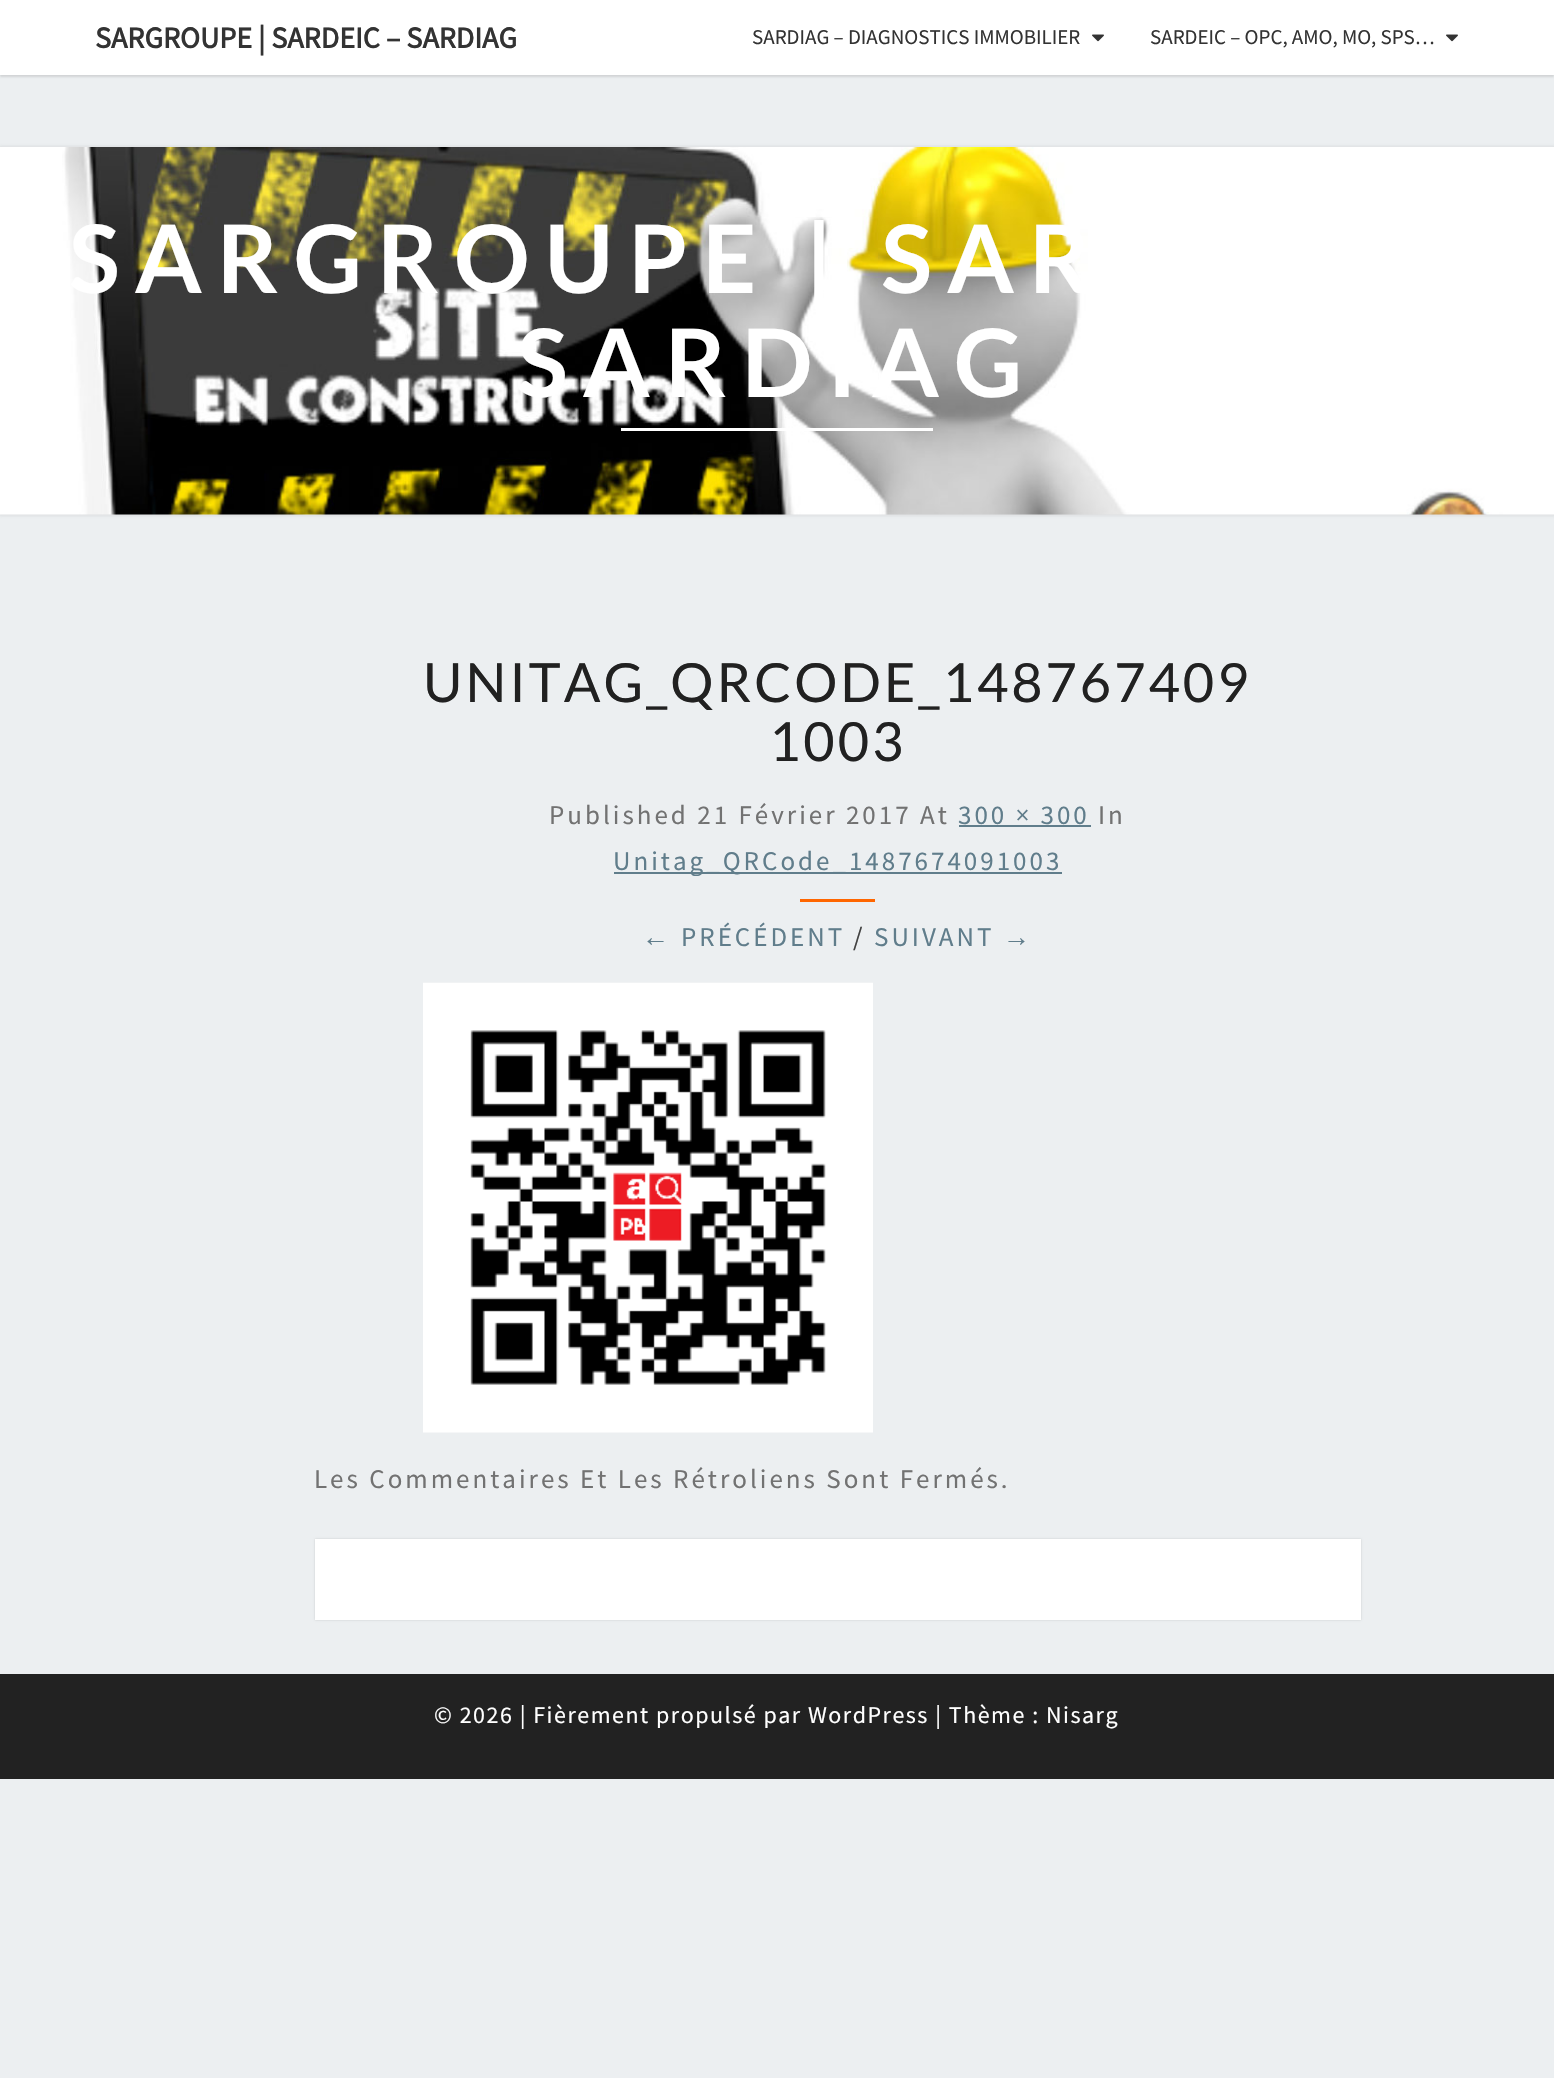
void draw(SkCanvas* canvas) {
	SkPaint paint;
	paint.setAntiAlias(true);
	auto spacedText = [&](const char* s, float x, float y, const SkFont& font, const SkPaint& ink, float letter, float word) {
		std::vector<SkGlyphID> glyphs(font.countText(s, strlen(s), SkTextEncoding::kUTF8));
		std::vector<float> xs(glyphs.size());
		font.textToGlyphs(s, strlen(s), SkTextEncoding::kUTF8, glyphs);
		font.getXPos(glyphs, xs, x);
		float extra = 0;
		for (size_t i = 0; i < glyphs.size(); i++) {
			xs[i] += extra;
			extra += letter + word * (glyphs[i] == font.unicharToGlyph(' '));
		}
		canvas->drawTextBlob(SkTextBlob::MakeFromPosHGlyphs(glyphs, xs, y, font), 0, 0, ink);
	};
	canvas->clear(0xffeceff1);
	paint.setColor(0x33646464);
	paint.setMaskFilter(SkMaskFilter::MakeBlur(kNormal_SkBlurStyle, 1));
	canvas->drawRect(SkRect::MakeXYWH(0, 2, 1554, 75), paint);
	paint.setMaskFilter(nullptr);
	paint.setColor(0xffffffff);
	canvas->drawRect(SkRect::MakeXYWH(0, 0, 1554, 75), paint);
	SkFont f1(fontMgr->matchFamilyStyle("Source Sans Pro", SkFontStyle::Bold()), 30);
	f1.setSubpixel(true);
	paint.setColor(0xff333333);
	canvas->drawString("SARGROUPE | SARDEIC – SARDIAG", 95, 48, f1, paint);
	SkFont f2(fontMgr->matchFamilyStyle("Source Sans Pro", SkFontStyle::Normal()), 21);
	f2.setSubpixel(true);
	canvas->drawString("SARDIAG – DIAGNOSTICS IMMOBILIER", 752, 44, f2, paint);
	canvas->drawImageRect(SkImages::DeferredFromEncodedData(SkData::MakeFromFileName("img1.png")), SkRect::MakeXYWH(1092, 34, 12, 8), SkSamplingOptions());
	canvas->drawString("SARDEIC – OPC, AMO, MO, SPS…", 1150, 44, f2, paint);
	canvas->drawImageRect(SkImages::DeferredFromEncodedData(SkData::MakeFromFileName("img1.png")), SkRect::MakeXYWH(1446, 34, 12, 8), SkSamplingOptions());
	paint.setColor(0x4db6b6b6);
	paint.setMaskFilter(SkMaskFilter::MakeBlur(kNormal_SkBlurStyle, 1.5));
	canvas->drawRect(SkRect::MakeXYWH(-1, 146, 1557, 370), paint);
	paint.setMaskFilter(nullptr);
	canvas->drawImageRect(SkImages::DeferredFromEncodedData(SkData::MakeFromFileName("img2.png")), SkRect::MakeXYWH(0, 147, 1554, 368), SkSamplingOptions());
	SkFont f3(fontMgr->matchFamilyStyle("Lato", SkFontStyle::Bold()), 94.5);
	f3.setSubpixel(true);
	paint.setColor(0xffffffff);
	spacedText("SARGROUPE | SAR", 69, 293, f3, paint, 15, 0);
	spacedText("SARDIAG", 517, 397, f3, paint, 15, 0);
	canvas->drawRect(SkRect::MakeXYWH(621, 428, 312, 3), paint);
	SkFont f4(fontMgr->matchFamilyStyle("Lato", SkFontStyle::Normal()), 54);
	f4.setSubpixel(true);
	paint.setColor(0xff212121);
	spacedText("UNITAG_QRCODE_148767409", 423, 702, f4, paint, 3, 0);
	spacedText("1003", 769, 761, f4, paint, 3, 0);
	SkFont f5(fontMgr->matchFamilyStyle("Source Sans Pro", SkFontStyle::Normal()), 27);
	f5.setSubpixel(true);
	paint.setColor(0xff727272);
	spacedText("Published 21 Février 2017 At", 549, 824, f5, paint, 3, 0);
	paint.setColor(0xff607d8b);
	spacedText("300 × 300", 958, 824, f5, paint, 3, 0);
	canvas->drawRect(SkRect::MakeXYWH(959, 825, 132, 2), paint);
	paint.setColor(0xff727272);
	spacedText("In", 1098, 824, f5, paint, 3, 0);
	paint.setColor(0xff607d8b);
	canvas->drawRect(SkRect::MakeXYWH(614, 872, 448, 2), paint);
	spacedText("Unitag_QRCode_1487674091003", 613, 870, f5, paint, 3, 0);
	paint.setColor(0xffff6600);
	canvas->drawRect(SkRect::MakeXYWH(800, 899, 75, 3), paint);
	SkFont f6(fontMgr->matchFamilyStyle("Liberation Sans", SkFontStyle::Normal()), 27);
	f6.setSubpixel(true);
	paint.setColor(0xff607d8b);
	spacedText("←", 642, 946, f6, paint, 3, 0);
	spacedText("PRÉCÉDENT", 681, 946, f5, paint, 3, 0);
	paint.setColor(0xff424242);
	spacedText("/", 853, 946, f5, paint, 3, 0);
	paint.setColor(0xff607d8b);
	spacedText("SUIVANT", 874, 946, f5, paint, 3, 0);
	spacedText("→", 1003, 946, f6, paint, 3, 0);
	canvas->drawImageRect(SkImages::DeferredFromEncodedData(SkData::MakeFromFileName("img3.png")), SkRect::MakeXYWH(423, 982, 450, 451), SkSamplingOptions());
	paint.setColor(0xff727272);
	spacedText("Les Commentaires Et Les Rétroliens Sont Fermés.", 314, 1488, f5, paint, 3, 0);
	paint.setColor(0x26000000);
	paint.setMaskFilter(SkMaskFilter::MakeBlur(kNormal_SkBlurStyle, 1));
	canvas->drawRect(SkRect::MakeXYWH(315, 1539, 1046, 81), paint);
	paint.setMaskFilter(nullptr);
	paint.setColor(0xffffffff);
	canvas->drawRect(SkRect::MakeXYWH(315, 1539, 1046, 81), paint);
	paint.setColor(0xff222222);
	canvas->drawRect(SkRect::MakeXYWH(0, 1674, 1554, 105), paint);
	SkFont f7(fontMgr->matchFamilyStyle("Source Sans Pro", SkFontStyle::Normal()), 24);
	f7.setSubpixel(true);
	paint.setColor(0xffffffff);
	spacedText("© 2026 | Fièrement propulsé par WordPress | Thème : Nisarg", 434, 1723, f7, paint, 1.5, 0);
}
